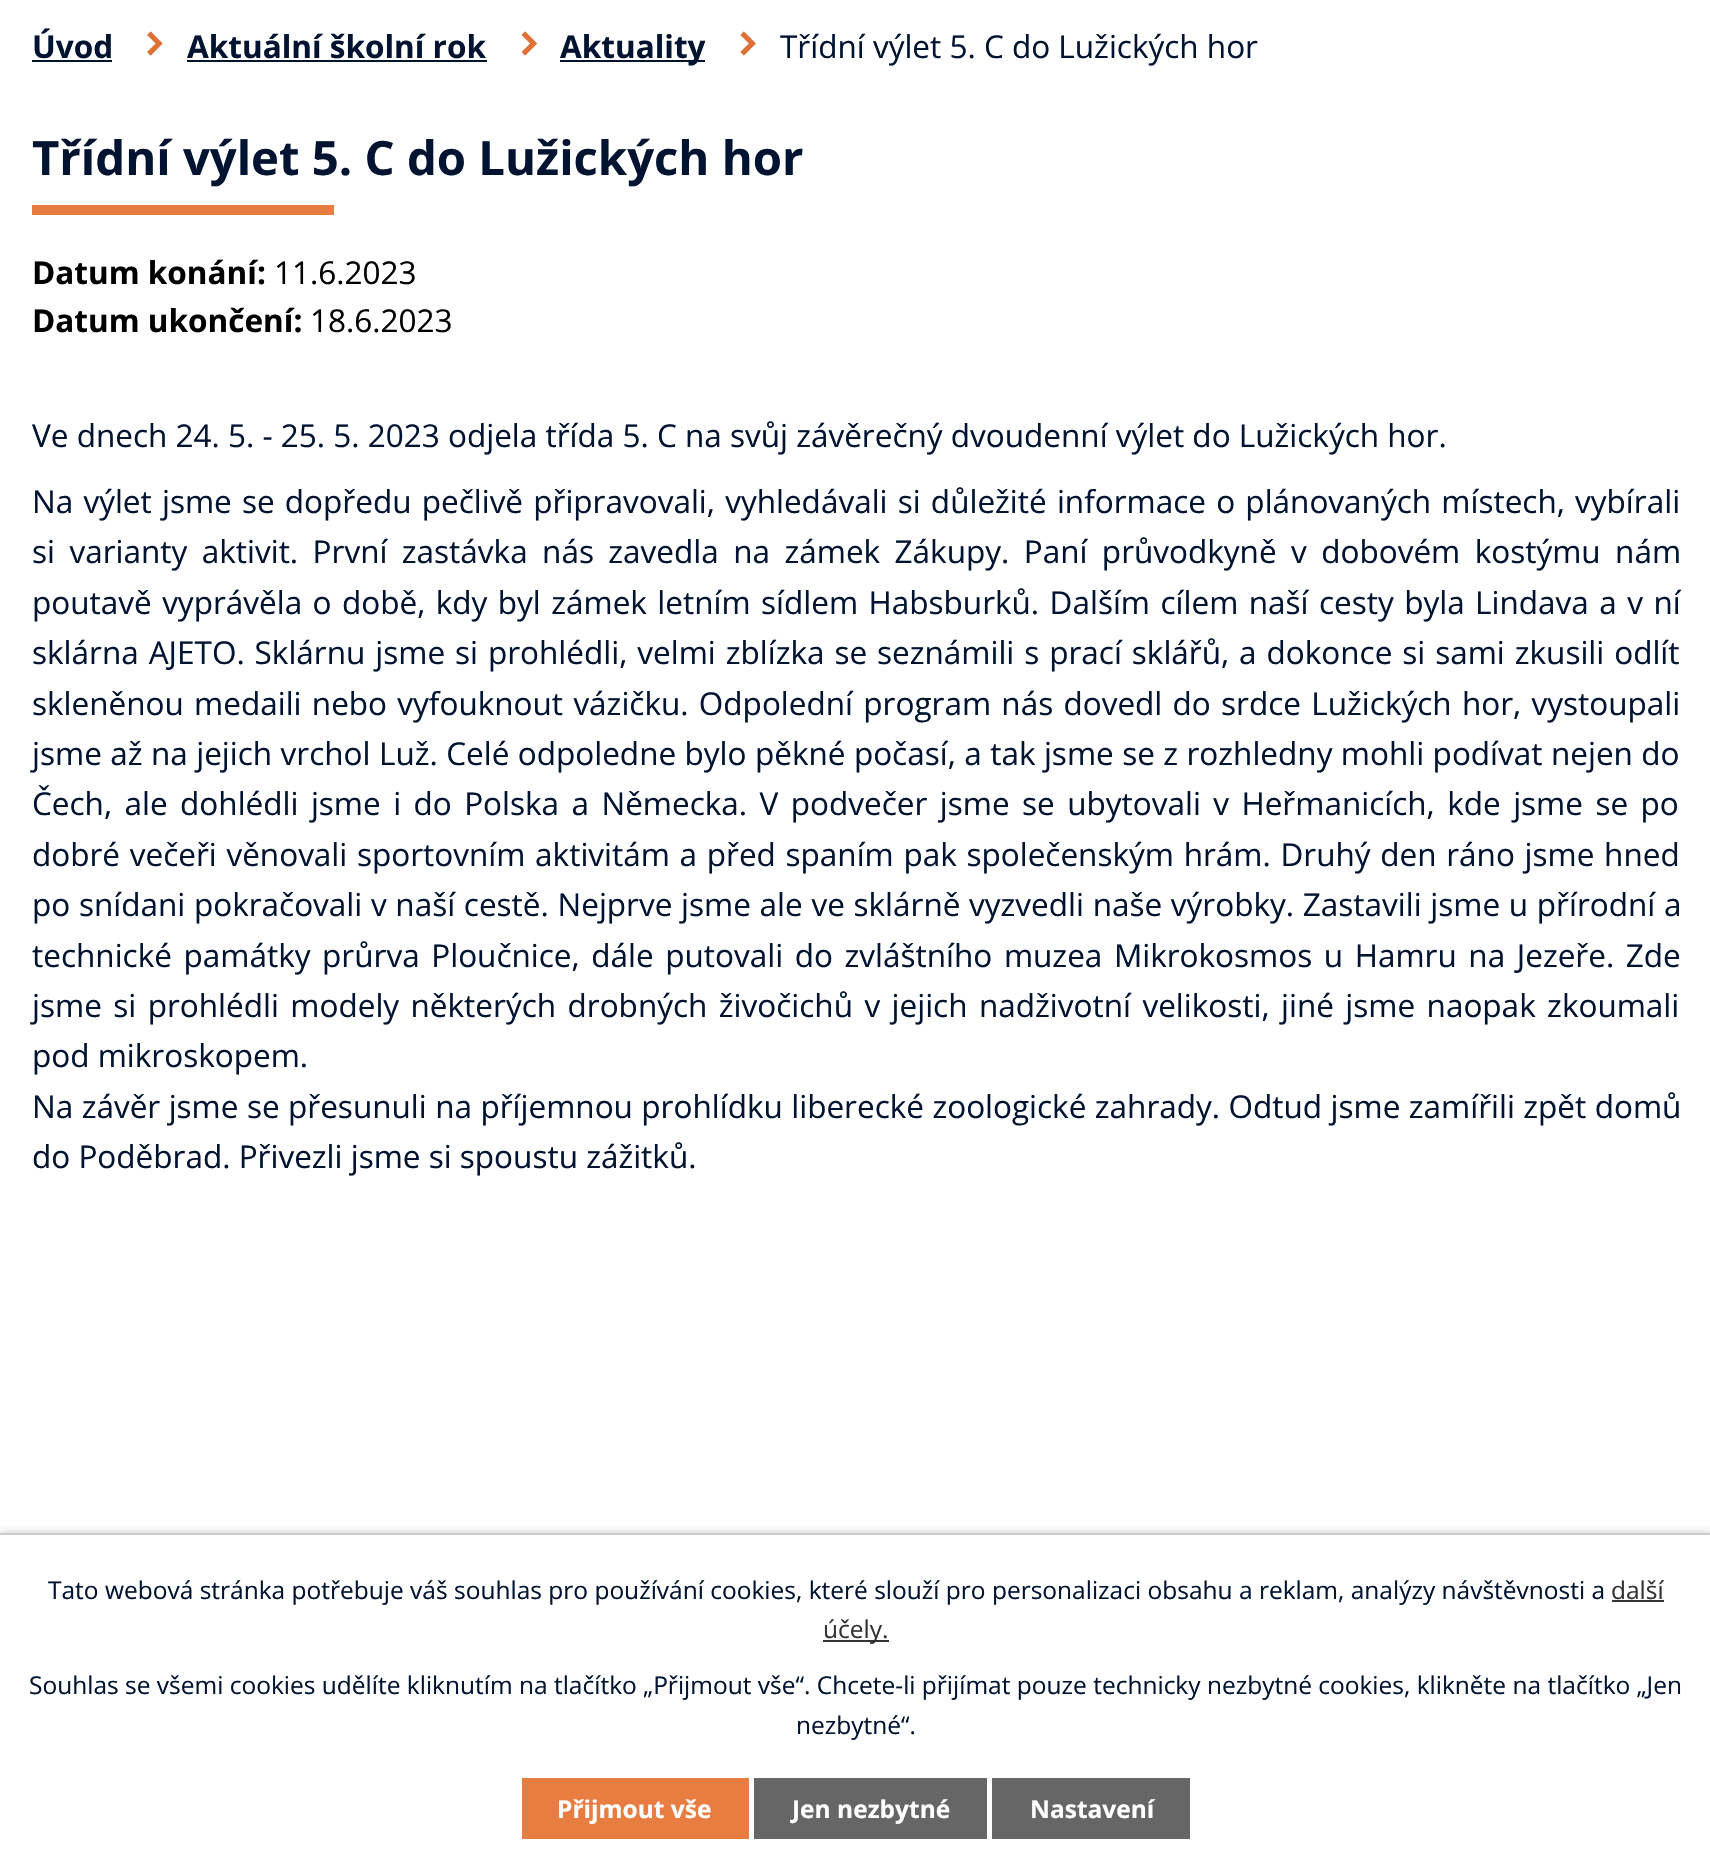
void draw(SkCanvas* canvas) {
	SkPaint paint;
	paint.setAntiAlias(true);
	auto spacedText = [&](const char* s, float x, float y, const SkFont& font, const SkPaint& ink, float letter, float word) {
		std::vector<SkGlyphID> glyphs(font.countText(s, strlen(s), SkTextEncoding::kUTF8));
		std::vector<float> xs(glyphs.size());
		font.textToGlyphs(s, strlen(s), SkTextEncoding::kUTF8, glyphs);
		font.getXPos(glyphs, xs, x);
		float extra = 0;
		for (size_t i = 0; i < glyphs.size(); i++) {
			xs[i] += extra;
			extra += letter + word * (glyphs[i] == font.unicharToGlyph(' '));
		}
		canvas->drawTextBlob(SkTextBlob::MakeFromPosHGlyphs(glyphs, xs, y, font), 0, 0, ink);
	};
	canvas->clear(0xffffffff);
	SkFont f1(fontMgr->matchFamilyStyle("Open Sans", SkFontStyle::Bold()), 31.5);
	f1.setSubpixel(true);
	paint.setColor(0xff001431);
	canvas->drawString("Úvod", 32, 58, f1, paint);
	canvas->drawRect(SkRect::MakeXYWH(32, 60, 80, 2), paint);
	canvas->drawImageRect(SkImages::DeferredFromEncodedData(SkData::MakeFromFileName("img1.png")), SkRect::MakeXYWH(147, 31, 16, 25), SkSamplingOptions());
	canvas->drawString("Aktuální školní rok", 187, 58, f1, paint);
	canvas->drawRect(SkRect::MakeXYWH(187, 60, 300, 2), paint);
	canvas->drawImageRect(SkImages::DeferredFromEncodedData(SkData::MakeFromFileName("img2.png")), SkRect::MakeXYWH(522, 31, 15, 25), SkSamplingOptions());
	canvas->drawRect(SkRect::MakeXYWH(560, 60, 145, 2), paint);
	canvas->drawString("Aktuality", 560, 58, f1, paint);
	canvas->drawImageRect(SkImages::DeferredFromEncodedData(SkData::MakeFromFileName("img3.png")), SkRect::MakeXYWH(740, 31, 16, 25), SkSamplingOptions());
	SkFont f2(fontMgr->matchFamilyStyle("Open Sans", SkFontStyle::Normal()), 31.5);
	f2.setSubpixel(true);
	canvas->drawString("Třídní výlet 5. C do Lužických hor", 780, 58, f2, paint);
	SkFont f3(fontMgr->matchFamilyStyle("Open Sans", SkFontStyle::Bold()), 47.25);
	f3.setSubpixel(true);
	canvas->drawString("Třídní výlet 5. C do Lužických hor", 32, 175, f3, paint);
	paint.setColor(0xffe87d41);
	canvas->drawRect(SkRect::MakeXYWH(32, 205, 302, 10), paint);
	paint.setColor(0xff000000);
	canvas->drawString("Datum konání:", 32, 284, f1, paint);
	canvas->drawString("11.6.2023", 274, 284, f2, paint);
	canvas->drawString("Datum ukončení:", 32, 332, f1, paint);
	canvas->drawString("18.6.2023", 310, 332, f2, paint);
	paint.setColor(0xff001431);
	canvas->drawString("Ve dnech 24. 5. - 25. 5. 2023 odjela třída 5. C na svůj závěrečný dvoudenní výlet do Lužických hor.", 32, 447, f2, paint);
	spacedText("Na výlet jsme se dopředu pečlivě připravovali, vyhledávali si důležité informace o plánovaných místech, vybírali", 32, 513, f2, paint, 0, 2);
	spacedText("si varianty aktivit. První zastávka nás zavedla na zámek Zákupy. Paní průvodkyně v dobovém kostýmu nám", 32, 563, f2, paint, 0, 6.25);
	spacedText("poutavě vyprávěla o době, kdy byl zámek letním sídlem Habsburků. Dalším cílem naší cesty byla Lindava a v ní", 32, 614, f2, paint, 0, 2.25);
	spacedText("sklárna AJETO. Sklárnu jsme si prohlédli, velmi zblízka se seznámili s prací sklářů, a dokonce si sami zkusili odlít", 32, 664, f2, paint, 0, 1.75);
	spacedText("skleněnou medaili nebo vyfouknout vázičku. Odpolední program nás dovedl do srdce Lužických hor, vystoupali", 32, 715, f2, paint, 0, 2.1);
	spacedText("jsme až na jejich vrchol Luž. Celé odpoledne bylo pěkné počasí, a tak jsme se z rozhledny mohli podívat nejen do", 32, 765, f2, paint, 0, 0.25);
	spacedText("Čech, ale dohlédli jsme i do Polska a Německa. V podvečer jsme se ubytovali v Heřmanicích, kde jsme se po", 32, 815, f2, paint, 0, 4.25);
	spacedText("dobré večeři věnovali sportovním aktivitám a před spaním pak společenským hrám. Druhý den ráno jsme hned", 32, 866, f2, paint, 0, 1.5);
	spacedText("po snídani pokračovali v naší cestě. Nejprve jsme ale ve sklárně vyzvedli naše výrobky. Zastavili jsme u přírodní a", 32, 916, f2, paint, 0, 0.5);
	spacedText("technické památky průrva Ploučnice, dále putovali do zvláštního muzea Mikrokosmos u Hamru na Jezeře. Zde", 32, 967, f2, paint, 0, 3.4);
	spacedText("jsme si prohlédli modely některých drobných živočichů v jejich nadživotní velikosti, jiné jsme naopak zkoumali", 32, 1017, f2, paint, 0, 3.25);
	canvas->drawString("pod mikroskopem.", 32, 1067, f2, paint);
	spacedText("Na závěr jsme se přesunuli na příjemnou prohlídku liberecké zoologické zahrady. Odtud jsme zamířili zpět domů", 32, 1118, f2, paint, 0, 0.25);
	canvas->drawString("do Poděbrad. Přivezli jsme si spoustu zážitků.", 32, 1168, f2, paint);
	paint.setColor(0x33000000);
	paint.setMaskFilter(SkMaskFilter::MakeBlur(kNormal_SkBlurStyle, 4.5));
	canvas->drawRect(SkRect::MakeXYWH(0, 1533, 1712, 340), paint);
	paint.setMaskFilter(nullptr);
	paint.setColor(0xffffffff);
	canvas->drawRect(SkRect::MakeXYWH(0, 1535, 1710, 336), paint);
	paint.setColor(0xffcccccc);
	canvas->drawRect(SkRect::MakeXYWH(0, 1533, 1710, 2), paint);
	SkFont f4(fontMgr->matchFamilyStyle("Open Sans", SkFontStyle::Normal()), 24.5);
	f4.setSubpixel(true);
	paint.setColor(0xff001431);
	canvas->drawString("Tato webová stránka potřebuje váš souhlas pro používání cookies, které slouží pro personalizaci obsahu a reklam, analýzy návštěvnosti a", 48, 1599, f4, paint);
	paint.setColor(0xff333333);
	canvas->drawString("další", 1611, 1599, f4, paint);
	canvas->drawRect(SkRect::MakeXYWH(1612, 1600, 52, 2), paint);
	canvas->drawRect(SkRect::MakeXYWH(823, 1640, 66, 2), paint);
	canvas->drawString("účely.", 823, 1638, f4, paint);
	paint.setColor(0xff001431);
	canvas->drawString("Souhlas se všemi cookies udělíte kliknutím na tlačítko „Přijmout vše“. Chcete-li přijímat pouze technicky nezbytné cookies, klikněte na tlačítko „Jen", 29, 1694, f4, paint);
	canvas->drawString("nezbytné“.", 796, 1734, f4, paint);
	paint.setColor(0xffe87d41);
	canvas->drawRect(SkRect::MakeXYWH(522, 1778, 227, 61), paint);
	SkFont f5(fontMgr->matchFamilyStyle("Open Sans", SkFontStyle::Bold()), 24.5);
	f5.setSubpixel(true);
	paint.setColor(0xffffffff);
	canvas->drawString("Přijmout vše", 557, 1818, f5, paint);
	paint.setColor(0xff666666);
	canvas->drawRect(SkRect::MakeXYWH(754, 1778, 233, 61), paint);
	paint.setColor(0xffffffff);
	canvas->drawString("Jen nezbytné", 792, 1818, f5, paint);
	paint.setColor(0xff666666);
	canvas->drawRect(SkRect::MakeXYWH(992, 1778, 198, 61), paint);
	paint.setColor(0xffffffff);
	canvas->drawString("Nastavení", 1030, 1818, f5, paint);
}
